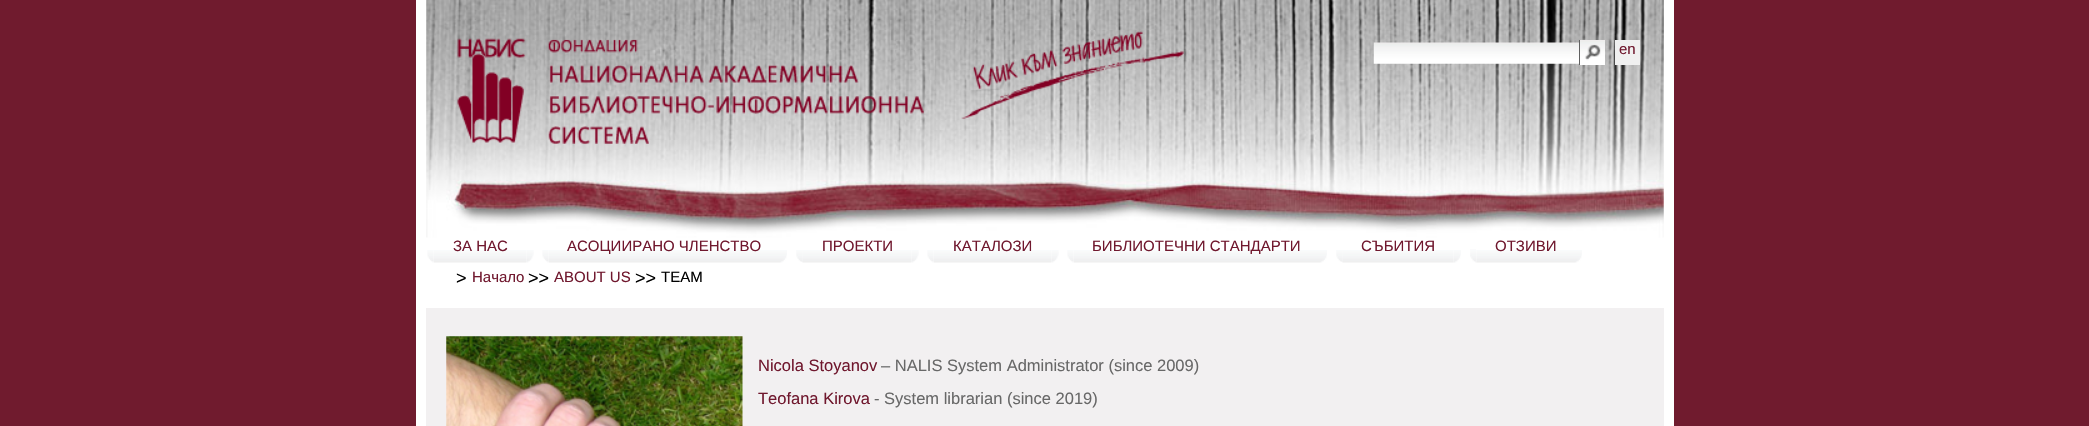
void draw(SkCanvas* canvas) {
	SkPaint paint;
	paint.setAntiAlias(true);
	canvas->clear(0xff701b2e);
	paint.setColor(0xffffffff);
	canvas->drawRect(SkRect::MakeXYWH(416, 0, 1258, 426), paint);
	canvas->drawImageRect(SkImages::DeferredFromEncodedData(SkData::MakeFromFileName("img1.png")), SkRect::MakeXYWH(426, 0, 1238, 238), SkSamplingOptions());
	canvas->drawImageRect(SkImages::DeferredFromEncodedData(SkData::MakeFromFileName("img2.png")), SkRect::MakeXYWH(457, 31, 727, 113), SkSamplingOptions());
	canvas->drawImageRect(SkImages::DeferredFromEncodedData(SkData::MakeFromFileName("img3.png")), SkRect::MakeXYWH(1373, 42, 206, 22), SkSamplingOptions());
	paint.setColor(0xff606060);
	canvas->drawRect(SkRect::MakeXYWH(1579, 40, 1, 25), paint);
	canvas->drawImageRect(SkImages::DeferredFromEncodedData(SkData::MakeFromFileName("img4.png")), SkRect::MakeXYWH(1580, 40, 25, 25), SkSamplingOptions());
	paint.setColor(0xfff0f0f0);
	canvas->drawRect(SkRect::MakeXYWH(1615, 40, 25, 25), paint);
	SkFont f1(fontMgr->matchFamilyStyle("Liberation Sans", SkFontStyle::Normal()), 15);
	f1.setSubpixel(true);
	paint.setColor(0xff70182e);
	canvas->drawString("en", 1619, 54, f1, paint);
	canvas->drawImageRect(SkImages::DeferredFromEncodedData(SkData::MakeFromFileName("img5.png")), SkRect::MakeXYWH(434, 250, 92, 13), SkSamplingOptions());
	canvas->drawString("ЗА НАС", 453, 251, f1, paint);
	canvas->drawImageRect(SkImages::DeferredFromEncodedData(SkData::MakeFromFileName("img6.png")), SkRect::MakeXYWH(427, 250, 7, 13), SkSamplingOptions());
	canvas->drawImageRect(SkImages::DeferredFromEncodedData(SkData::MakeFromFileName("img7.png")), SkRect::MakeXYWH(526, 250, 8, 13), SkSamplingOptions());
	canvas->drawImageRect(SkImages::DeferredFromEncodedData(SkData::MakeFromFileName("img8.png")), SkRect::MakeXYWH(549, 250, 231, 13), SkSamplingOptions());
	canvas->drawString("АСОЦИИРАНО ЧЛЕНСТВО", 567, 251, f1, paint);
	canvas->drawImageRect(SkImages::DeferredFromEncodedData(SkData::MakeFromFileName("img6.png")), SkRect::MakeXYWH(542, 250, 7, 13), SkSamplingOptions());
	canvas->drawImageRect(SkImages::DeferredFromEncodedData(SkData::MakeFromFileName("img9.png")), SkRect::MakeXYWH(780, 250, 7, 13), SkSamplingOptions());
	canvas->drawImageRect(SkImages::DeferredFromEncodedData(SkData::MakeFromFileName("img11.png")), SkRect::MakeXYWH(796, 250, 7, 12), SkSamplingOptions());
	canvas->drawImageRect(SkImages::DeferredFromEncodedData(SkData::MakeFromFileName("img10.png")), SkRect::MakeXYWH(802, 250, 109, 13), SkSamplingOptions());
	canvas->drawString("ПРОЕКТИ", 822, 251, f1, paint);
	canvas->drawImageRect(SkImages::DeferredFromEncodedData(SkData::MakeFromFileName("img7.png")), SkRect::MakeXYWH(911, 250, 8, 13), SkSamplingOptions());
	canvas->drawImageRect(SkImages::DeferredFromEncodedData(SkData::MakeFromFileName("img12.png")), SkRect::MakeXYWH(934, 250, 117, 13), SkSamplingOptions());
	canvas->drawString("КАТАЛОЗИ", 953, 251, f1, paint);
	canvas->drawImageRect(SkImages::DeferredFromEncodedData(SkData::MakeFromFileName("img6.png")), SkRect::MakeXYWH(927, 250, 7, 13), SkSamplingOptions());
	canvas->drawImageRect(SkImages::DeferredFromEncodedData(SkData::MakeFromFileName("img7.png")), SkRect::MakeXYWH(1051, 250, 8, 13), SkSamplingOptions());
	canvas->drawImageRect(SkImages::DeferredFromEncodedData(SkData::MakeFromFileName("img13.png")), SkRect::MakeXYWH(1074, 250, 246, 13), SkSamplingOptions());
	canvas->drawString("БИБЛИОТЕЧНИ СТАНДАРТИ", 1092, 251, f1, paint);
	canvas->drawImageRect(SkImages::DeferredFromEncodedData(SkData::MakeFromFileName("img6.png")), SkRect::MakeXYWH(1067, 250, 7, 13), SkSamplingOptions());
	canvas->drawImageRect(SkImages::DeferredFromEncodedData(SkData::MakeFromFileName("img14.png")), SkRect::MakeXYWH(1320, 250, 7, 13), SkSamplingOptions());
	canvas->drawImageRect(SkImages::DeferredFromEncodedData(SkData::MakeFromFileName("img11.png")), SkRect::MakeXYWH(1336, 250, 7, 12), SkSamplingOptions());
	canvas->drawImageRect(SkImages::DeferredFromEncodedData(SkData::MakeFromFileName("img15.png")), SkRect::MakeXYWH(1342, 250, 112, 13), SkSamplingOptions());
	canvas->drawString("СЪБИТИЯ", 1361, 251, f1, paint);
	canvas->drawImageRect(SkImages::DeferredFromEncodedData(SkData::MakeFromFileName("img16.png")), SkRect::MakeXYWH(1454, 250, 7, 13), SkSamplingOptions());
	canvas->drawImageRect(SkImages::DeferredFromEncodedData(SkData::MakeFromFileName("img17.png")), SkRect::MakeXYWH(1476, 250, 99, 13), SkSamplingOptions());
	canvas->drawString("ОТЗИВИ", 1495, 251, f1, paint);
	canvas->drawImageRect(SkImages::DeferredFromEncodedData(SkData::MakeFromFileName("img18.png")), SkRect::MakeXYWH(1470, 249, 6, 14), SkSamplingOptions());
	canvas->drawImageRect(SkImages::DeferredFromEncodedData(SkData::MakeFromFileName("img14.png")), SkRect::MakeXYWH(1575, 250, 7, 13), SkSamplingOptions());
	SkFont f2(fontMgr->matchFamilyStyle("Liberation Sans", SkFontStyle::Normal()), 18);
	f2.setSubpixel(true);
	paint.setColor(0xff000000);
	canvas->drawString(">", 456, 284, f2, paint);
	paint.setColor(0xff70182e);
	canvas->drawString("Начало", 472, 282, f1, paint);
	paint.setColor(0xff000000);
	canvas->drawString(">>", 528, 284, f2, paint);
	paint.setColor(0xff70182e);
	canvas->drawString("ABOUT US", 554, 282, f1, paint);
	paint.setColor(0xff000000);
	canvas->drawString(">>", 635, 284, f2, paint);
	canvas->drawString("TEAM", 661, 282, f1, paint);
	paint.setColor(0xfff2f0f1);
	canvas->drawRect(SkRect::MakeXYWH(426, 308, 1238, 118), paint);
	canvas->drawImageRect(SkImages::DeferredFromEncodedData(SkData::MakeFromFileName("img19.png")), SkRect::MakeXYWH(446, 336, 297, 90), SkSamplingOptions());
	SkFont f3(fontMgr->matchFamilyStyle("Liberation Sans", SkFontStyle::Normal()), 16.5);
	f3.setSubpixel(true);
	paint.setColor(0xff70182e);
	canvas->drawString("Nicola Stoyanov", 758, 371, f3, paint);
	paint.setColor(0xff686868);
	canvas->drawString("– NALIS System Administrator (since 2009)", 881, 371, f3, paint);
	paint.setColor(0xff70182e);
	canvas->drawString("Teofana Kirova", 758, 404, f3, paint);
	paint.setColor(0xff686868);
	canvas->drawString("- System librarian (since 2019)", 874, 404, f3, paint);
}
